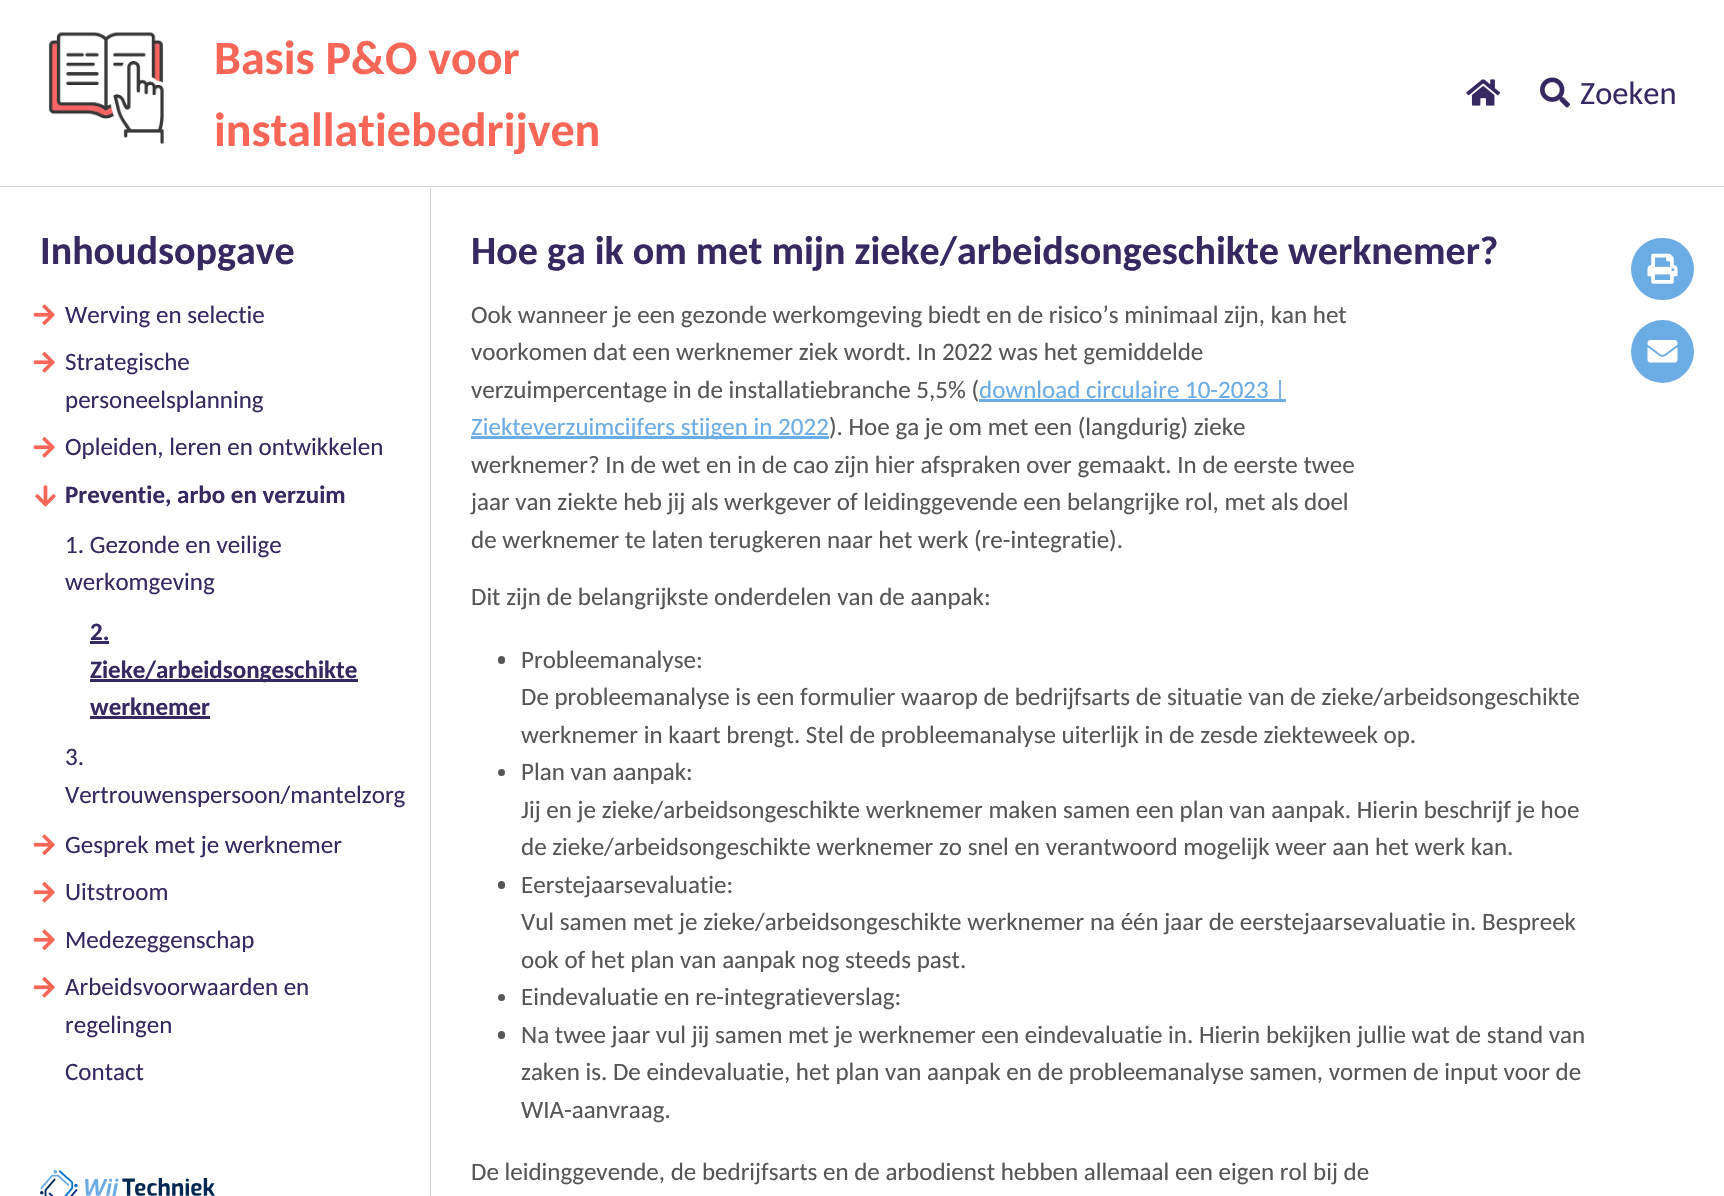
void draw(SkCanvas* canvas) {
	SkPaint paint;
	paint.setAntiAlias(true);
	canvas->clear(0xffffffff);
	paint.setColor(0xffd3d3d3);
	canvas->drawRect(SkRect::MakeXYWH(0, 186, 1724, 1), paint);
	canvas->drawImageRect(SkImages::DeferredFromEncodedData(SkData::MakeFromFileName("img1.png")), SkRect::MakeXYWH(48, 32, 116, 112), SkSamplingOptions());
	SkFont f1(fontMgr->matchFamilyStyle("Carlito", SkFontStyle::Bold()), 48);
	f1.setSubpixel(true);
	paint.setColor(0xfff86657);
	canvas->drawString("Basis P&O voor", 214, 74, f1, paint);
	canvas->drawString("installatiebedrijven", 214, 146, f1, paint);
	canvas->drawImageRect(SkImages::DeferredFromEncodedData(SkData::MakeFromFileName("img2.png")), SkRect::MakeXYWH(1466, 79, 34, 27), SkSamplingOptions());
	canvas->drawImageRect(SkImages::DeferredFromEncodedData(SkData::MakeFromFileName("img3.png")), SkRect::MakeXYWH(1540, 77, 30, 31), SkSamplingOptions());
	SkFont f2(fontMgr->matchFamilyStyle("Carlito", SkFontStyle::Normal()), 32.5);
	f2.setSubpixel(true);
	paint.setColor(0xff362860);
	canvas->drawString("Zoeken", 1580, 104, f2, paint);
	paint.setColor(0xffd3d3d3);
	canvas->drawRect(SkRect::MakeXYWH(430, 188, 1, 1008), paint);
	SkFont f3(fontMgr->matchFamilyStyle("Carlito", SkFontStyle::Bold()), 40);
	f3.setSubpixel(true);
	paint.setColor(0xff362860);
	canvas->drawString("Inhoudsopgave", 40, 264, f3, paint);
	canvas->drawImageRect(SkImages::DeferredFromEncodedData(SkData::MakeFromFileName("img4.png")), SkRect::MakeXYWH(33, 304, 22, 21), SkSamplingOptions());
	SkFont f4(fontMgr->matchFamilyStyle("Carlito", SkFontStyle::Normal()), 25);
	f4.setSubpixel(true);
	canvas->drawString("Werving en selectie", 65, 323, f4, paint);
	canvas->drawImageRect(SkImages::DeferredFromEncodedData(SkData::MakeFromFileName("img5.png")), SkRect::MakeXYWH(33, 352, 22, 21), SkSamplingOptions());
	canvas->drawString("Strategische", 65, 370, f4, paint);
	canvas->drawString("personeelsplanning", 65, 408, f4, paint);
	canvas->drawImageRect(SkImages::DeferredFromEncodedData(SkData::MakeFromFileName("img5.png")), SkRect::MakeXYWH(33, 437, 22, 21), SkSamplingOptions());
	canvas->drawString("Opleiden, leren en ontwikkelen", 65, 455, f4, paint);
	canvas->drawImageRect(SkImages::DeferredFromEncodedData(SkData::MakeFromFileName("img6.png")), SkRect::MakeXYWH(35, 485, 21, 22), SkSamplingOptions());
	SkFont f5(fontMgr->matchFamilyStyle("Carlito", SkFontStyle::Bold()), 25);
	f5.setSubpixel(true);
	canvas->drawString("Preventie, arbo en verzuim", 65, 503, f5, paint);
	canvas->drawString("1. Gezonde en veilige", 65, 553, f4, paint);
	canvas->drawString("werkomgeving", 65, 590, f4, paint);
	canvas->drawString("2.", 90, 640, f5, paint);
	canvas->drawRect(SkRect::MakeXYWH(90, 641, 19, 3), paint);
	canvas->drawRect(SkRect::MakeXYWH(90, 679, 268, 3), paint);
	canvas->drawString("Zieke/arbeidsongeschikte", 90, 678, f5, paint);
	canvas->drawString("werknemer", 90, 715, f5, paint);
	canvas->drawRect(SkRect::MakeXYWH(90, 716, 120, 3), paint);
	canvas->drawString("3.", 65, 765, f4, paint);
	canvas->drawString("Vertrouwenspersoon/mantelzorg", 65, 803, f4, paint);
	canvas->drawImageRect(SkImages::DeferredFromEncodedData(SkData::MakeFromFileName("img4.png")), SkRect::MakeXYWH(33, 834, 22, 21), SkSamplingOptions());
	canvas->drawString("Gesprek met je werknemer", 65, 853, f4, paint);
	canvas->drawImageRect(SkImages::DeferredFromEncodedData(SkData::MakeFromFileName("img5.png")), SkRect::MakeXYWH(33, 882, 22, 21), SkSamplingOptions());
	canvas->drawString("Uitstroom", 65, 900, f4, paint);
	canvas->drawImageRect(SkImages::DeferredFromEncodedData(SkData::MakeFromFileName("img4.png")), SkRect::MakeXYWH(33, 929, 22, 21), SkSamplingOptions());
	canvas->drawString("Medezeggenschap", 65, 948, f4, paint);
	canvas->drawImageRect(SkImages::DeferredFromEncodedData(SkData::MakeFromFileName("img5.png")), SkRect::MakeXYWH(33, 977, 22, 21), SkSamplingOptions());
	canvas->drawString("Arbeidsvoorwaarden en", 65, 995, f4, paint);
	canvas->drawString("regelingen", 65, 1033, f4, paint);
	canvas->drawString("Contact", 65, 1080, f4, paint);
	canvas->drawImageRect(SkImages::DeferredFromEncodedData(SkData::MakeFromFileName("img7.png")), SkRect::MakeXYWH(40, 1170, 175, 26), SkSamplingOptions());
	canvas->drawString("Hoe ga ik om met mijn zieke/arbeidsongeschikte werknemer?", 471, 264, f3, paint);
	paint.setColor(0xff6cace4);
	canvas->drawRoundRect(SkRect::MakeXYWH(1631, 238, 63, 62), 31, 31, paint);
	canvas->drawImageRect(SkImages::DeferredFromEncodedData(SkData::MakeFromFileName("img8.png")), SkRect::MakeXYWH(1647, 253, 31, 31), SkSamplingOptions());
	canvas->drawCircle(1662.5, 351.5, 31.5, paint);
	canvas->drawImageRect(SkImages::DeferredFromEncodedData(SkData::MakeFromFileName("img9.png")), SkRect::MakeXYWH(1647, 340, 31, 23), SkSamplingOptions());
	paint.setColor(0xff565656);
	canvas->drawString("Ook wanneer je een gezonde werkomgeving biedt en de risico’s minimaal zijn, kan het", 471, 323, f4, paint);
	canvas->drawString("voorkomen dat een werknemer ziek wordt. In 2022 was het gemiddelde", 471, 360, f4, paint);
	canvas->drawString("verzuimpercentage in de installatiebranche 5,5% (", 471, 398, f4, paint);
	paint.setColor(0xff6cace4);
	canvas->drawRect(SkRect::MakeXYWH(979, 399, 307, 3), paint);
	canvas->drawString("download circulaire 10-2023 |", 979, 398, f4, paint);
	canvas->drawRect(SkRect::MakeXYWH(471, 436, 358, 3), paint);
	canvas->drawString("Ziekteverzuimcijfers stijgen in 2022", 471, 435, f4, paint);
	paint.setColor(0xff565656);
	canvas->drawString("). Hoe ga je om met een (langdurig) zieke", 829, 435, f4, paint);
	canvas->drawString("werknemer? In de wet en in de cao zijn hier afspraken over gemaakt. In de eerste twee", 471, 473, f4, paint);
	canvas->drawString("jaar van ziekte heb jij als werkgever of leidinggevende een belangrijke rol, met als doel", 471, 510, f4, paint);
	canvas->drawString("de werknemer te laten terugkeren naar het werk (re-integratie).", 471, 548, f4, paint);
	canvas->drawString("Dit zijn de belangrijkste onderdelen van de aanpak:", 471, 605, f4, paint);
	canvas->drawRoundRect(SkRect::MakeXYWH(498, 656, 7, 8), 3.5, 3.5, paint);
	canvas->drawString("Probleemanalyse:", 521, 668, f4, paint);
	canvas->drawString("De probleemanalyse is een formulier waarop de bedrijfsarts de situatie van de zieke/arbeidsongeschikte", 521, 705, f4, paint);
	canvas->drawString("werknemer in kaart brengt. Stel de probleemanalyse uiterlijk in de zesde ziekteweek op.", 521, 743, f4, paint);
	canvas->drawCircle(501.5, 772.5, 3.5, paint);
	canvas->drawString("Plan van aanpak:", 521, 780, f4, paint);
	canvas->drawString("Jij en je zieke/arbeidsongeschikte werknemer maken samen een plan van aanpak. Hierin beschrijf je hoe", 521, 818, f4, paint);
	canvas->drawString("de zieke/arbeidsongeschikte werknemer zo snel en verantwoord mogelijk weer aan het werk kan.", 521, 855, f4, paint);
	canvas->drawRoundRect(SkRect::MakeXYWH(498, 881, 7, 8), 3.5, 3.5, paint);
	canvas->drawString("Eerstejaarsevaluatie:", 521, 893, f4, paint);
	canvas->drawString("Vul samen met je zieke/arbeidsongeschikte werknemer na één jaar de eerstejaarsevaluatie in. Bespreek", 521, 930, f4, paint);
	canvas->drawString("ook of het plan van aanpak nog steeds past.", 521, 968, f4, paint);
	canvas->drawCircle(501.5, 997.5, 3.5, paint);
	canvas->drawString("Eindevaluatie en re-integratieverslag:", 521, 1005, f4, paint);
	canvas->drawRoundRect(SkRect::MakeXYWH(498, 1031, 7, 8), 3.5, 3.5, paint);
	canvas->drawString("Na twee jaar vul jij samen met je werknemer een eindevaluatie in. Hierin bekijken jullie wat de stand van", 521, 1043, f4, paint);
	canvas->drawString("zaken is. De eindevaluatie, het plan van aanpak en de probleemanalyse samen, vormen de input voor de", 521, 1080, f4, paint);
	canvas->drawString("WIA-aanvraag.", 521, 1118, f4, paint);
	canvas->drawString("De leidinggevende, de bedrijfsarts en de arbodienst hebben allemaal een eigen rol bij de", 471, 1180, f4, paint);
}
